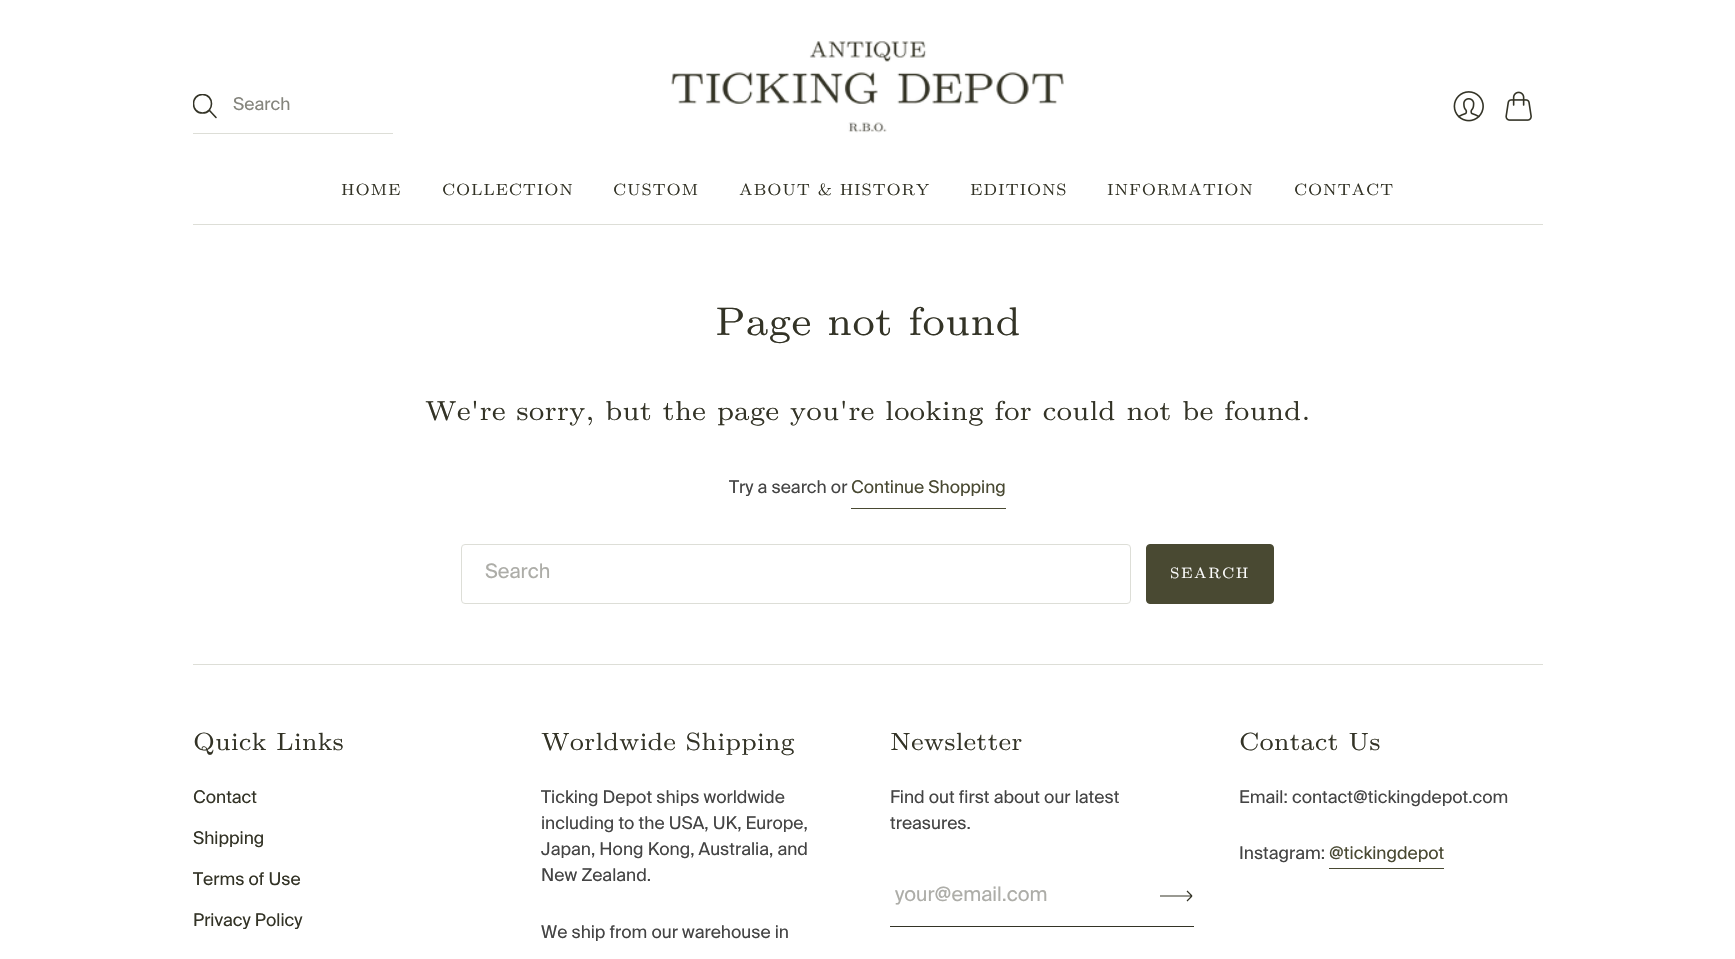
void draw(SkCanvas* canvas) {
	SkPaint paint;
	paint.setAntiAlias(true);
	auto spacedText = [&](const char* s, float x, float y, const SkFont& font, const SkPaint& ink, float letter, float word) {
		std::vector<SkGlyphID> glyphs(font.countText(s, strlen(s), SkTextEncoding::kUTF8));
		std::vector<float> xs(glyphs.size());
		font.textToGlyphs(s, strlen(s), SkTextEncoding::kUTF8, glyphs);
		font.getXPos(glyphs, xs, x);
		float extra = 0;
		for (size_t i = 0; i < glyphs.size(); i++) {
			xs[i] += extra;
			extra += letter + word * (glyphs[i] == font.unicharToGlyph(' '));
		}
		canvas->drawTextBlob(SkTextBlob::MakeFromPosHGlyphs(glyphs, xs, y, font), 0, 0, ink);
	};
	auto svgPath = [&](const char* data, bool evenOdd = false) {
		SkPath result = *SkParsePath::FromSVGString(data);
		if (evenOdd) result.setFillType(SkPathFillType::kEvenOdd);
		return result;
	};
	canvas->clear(0xffffffff);
	canvas->save();
	canvas->clipRect(SkRect::MakeXYWH(193, 94, 25, 25));
	paint.setStroke(true);
	paint.setStrokeWidth(1.6);
	paint.setStrokeCap(SkPaint::kRound_Cap);
	paint.setStrokeJoin(SkPaint::kRound_Join);
	paint.setColor(0xff333326);
	canvas->drawPath(svgPath("M202.5 113C214.5 113 214.5 94.5 202.5 94.5C190.5 94.5 190.5 113 202.5 113Z"), paint);
	canvas->restore();
	canvas->drawPath(svgPath("M216 117.5L209.5 110.5"), paint);
	SkFont f1(fontMgr->matchFamilyStyle("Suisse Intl", SkFontStyle::Normal()), 17.5);
	f1.setSubpixel(true);
	paint.setStroke(false);
	paint.setColor(0xff85857d);
	canvas->drawString("Search", 233, 110, f1, paint);
	paint.setColor(0xffddded7);
	canvas->drawRect(SkRect::MakeXYWH(193, 133, 200, 1), paint);
	canvas->drawImageRect(SkImages::DeferredFromEncodedData(SkData::MakeFromFileName("img1.png")), SkRect::MakeXYWH(1453, 91, 31, 31), SkSamplingOptions());
	canvas->drawImageRect(SkImages::DeferredFromEncodedData(SkData::MakeFromFileName("img2.png")), SkRect::MakeXYWH(1505, 91, 27, 30), SkSamplingOptions());
	canvas->drawRect(SkRect::MakeXYWH(193, 224, 1350, 1), paint);
	canvas->drawImageRect(SkImages::DeferredFromEncodedData(SkData::MakeFromFileName("img3.png")), SkRect::MakeXYWH(671, 41, 393, 92), SkSamplingOptions());
	SkFont f2(fontMgr->matchFamilyStyle("Latin Modern Roman", SkFontStyle::Normal()), 16.25);
	f2.setSubpixel(true);
	paint.setColor(0xff333326);
	spacedText("HOME", 341, 195, f2, paint, 0.75, 0);
	spacedText("COLLECTION", 442, 195, f2, paint, 0.75, 0);
	spacedText("CUSTOM", 613, 195, f2, paint, 0.75, 0);
	spacedText("ABOUT & HISTORY", 739, 195, f2, paint, 0.75, 0);
	spacedText("EDITIONS", 970, 195, f2, paint, 0.75, 0);
	spacedText("INFORMATION", 1107, 195, f2, paint, 0.75, 0);
	spacedText("CONTACT", 1294, 195, f2, paint, 0.75, 0);
	SkFont f3(fontMgr->matchFamilyStyle("Latin Modern Roman", SkFontStyle::Normal()), 40);
	f3.setSubpixel(true);
	canvas->drawString("Page not found", 715, 335, f3, paint);
	SkFont f4(fontMgr->matchFamilyStyle("Latin Modern Roman", SkFontStyle::Normal()), 27.5);
	f4.setSubpixel(true);
	canvas->drawString("We're sorry, but the page you're looking for could not be found.", 425, 420, f4, paint);
	paint.setColor(0xff444444);
	canvas->drawString("Try a search or", 729, 493, f1, paint);
	paint.setColor(0xff494932);
	canvas->drawString("Continue Shopping", 851, 493, f1, paint);
	canvas->drawRect(SkRect::MakeXYWH(851, 508, 155, 1), paint);
	paint.setStroke(true);
	paint.setStrokeWidth(1);
	paint.setStrokeCap(SkPaint::kButt_Cap);
	paint.setStrokeJoin(SkPaint::kMiter_Join);
	paint.setColor(0xffddded7);
	canvas->drawRoundRect(SkRect::MakeXYWH(461.5, 544.5, 669, 59), 3.5, 3.5, paint);
	SkFont f5(fontMgr->matchFamilyStyle("Suisse Intl", SkFontStyle::Normal()), 20);
	f5.setSubpixel(true);
	paint.setStroke(false);
	paint.setColor(0xffadada8);
	canvas->drawString("Search", 485, 578, f5, paint);
	paint.setColor(0xff494932);
	canvas->drawRoundRect(SkRect::MakeXYWH(1146.5, 544.5, 127, 59), 3.5, 3.5, paint);
	paint.setStroke(true);
	canvas->drawRoundRect(SkRect::MakeXYWH(1146.5, 544.5, 127, 59), 3.5, 3.5, paint);
	SkFont f6(fontMgr->matchFamilyStyle("Latin Modern Roman", SkFontStyle::Normal()), 15);
	f6.setSubpixel(true);
	paint.setStroke(false);
	paint.setColor(0xffffffff);
	spacedText("SEARCH", 1170, 578, f6, paint, 1.5, 0);
	paint.setColor(0xffddded7);
	canvas->drawRect(SkRect::MakeXYWH(193, 664, 1350, 1), paint);
	SkFont f7(fontMgr->matchFamilyStyle("Latin Modern Roman", SkFontStyle::Normal()), 25);
	f7.setSubpixel(true);
	paint.setColor(0xff333326);
	canvas->drawString("Quick Links", 193, 750, f7, paint);
	canvas->drawString("Contact", 193, 803, f1, paint);
	canvas->drawString("Shipping", 193, 844, f1, paint);
	canvas->drawString("Terms of Use", 193, 885, f1, paint);
	canvas->drawString("Privacy Policy", 193, 926, f1, paint);
	canvas->drawString("Worldwide Shipping", 541, 750, f7, paint);
	paint.setColor(0xff444444);
	canvas->drawString("Ticking Depot ships worldwide", 541, 803, f1, paint);
	canvas->drawString("including to the USA, UK, Europe,", 541, 829, f1, paint);
	canvas->drawString("Japan, Hong Kong, Australia, and", 541, 855, f1, paint);
	canvas->drawString("New Zealand.", 541, 881, f1, paint);
	canvas->drawString("We ship from our warehouse in", 541, 938, f1, paint);
	paint.setColor(0xff333326);
	canvas->drawString("Newsletter", 890, 750, f7, paint);
	paint.setColor(0xff444444);
	canvas->drawString("Find out first about our latest", 890, 803, f1, paint);
	canvas->drawString("treasures.", 890, 829, f1, paint);
	paint.setColor(0xff333326);
	canvas->drawRect(SkRect::MakeXYWH(890, 926, 304, 1), paint);
	paint.setColor(0xffadada8);
	canvas->drawString("your@email.com", 895, 901, f5, paint);
	paint.setStroke(true);
	paint.setStrokeWidth(1.2);
	paint.setColor(0xff333326);
	canvas->drawPath(svgPath("M1160 896H1192M1192 896L1187 891M1192 896L1187 901"), paint);
	paint.setStroke(false);
	canvas->drawString("Contact Us", 1239, 750, f7, paint);
	paint.setColor(0xff444444);
	canvas->drawString("Email: contact@tickingdepot.com", 1239, 803, f1, paint);
	canvas->drawString("Instagram:", 1239, 859, f1, paint);
	paint.setColor(0xff494932);
	canvas->drawString("@tickingdepot", 1329, 859, f1, paint);
	canvas->drawRect(SkRect::MakeXYWH(1329, 868, 115, 1), paint);
}
